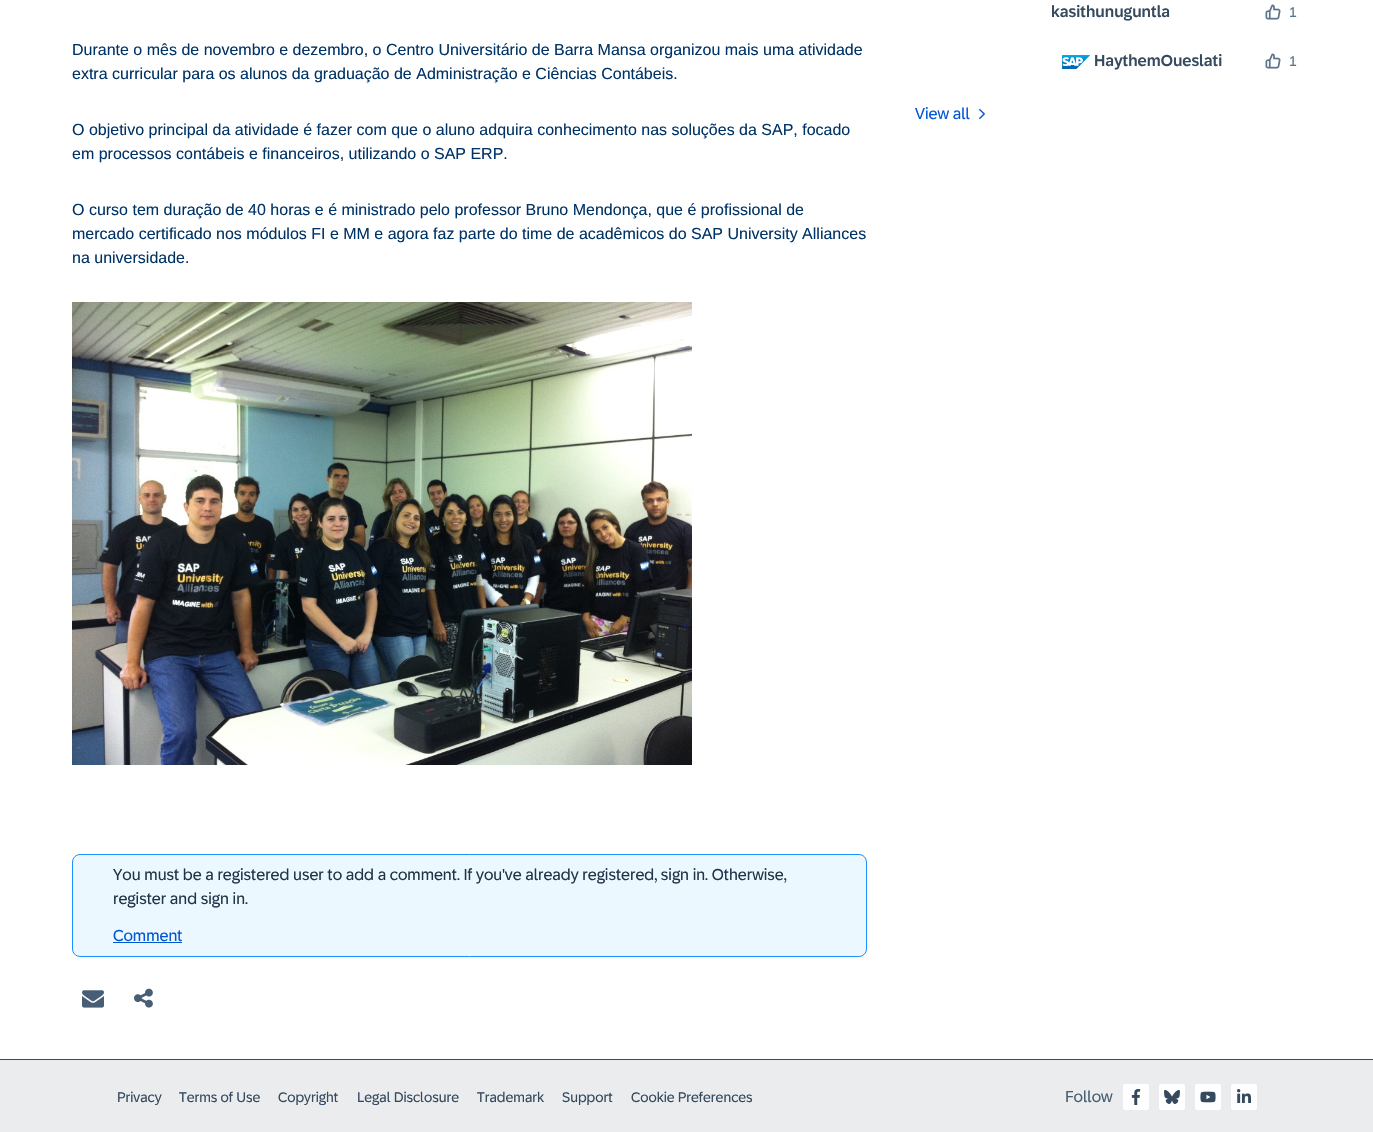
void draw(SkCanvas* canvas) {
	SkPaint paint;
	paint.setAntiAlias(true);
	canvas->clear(0xffffffff);
	SkFont f1(fontMgr->matchFamilyStyle("Liberation Sans", SkFontStyle::Normal()), 16);
	f1.setSubpixel(true);
	paint.setColor(0xff003366);
	canvas->drawString("Durante o mês de novembro e dezembro, o Centro Universitário de Barra Mansa organizou mais uma atividade", 72, 55, f1, paint);
	canvas->drawString("extra curricular para os alunos da graduação de Administração e Ciências Contábeis.", 72, 79, f1, paint);
	canvas->drawString("O objetivo principal da atividade é fazer com que o aluno adquira conhecimento nas soluções da SAP, focado", 72, 135, f1, paint);
	canvas->drawString("em processos contábeis e financeiros, utilizando o SAP ERP.", 72, 159, f1, paint);
	canvas->drawString("O curso tem duração de 40 horas e é ministrado pelo professor Bruno Mendonça, que é profissional de", 72, 215, f1, paint);
	canvas->drawString("mercado certificado nos módulos FI e MM e agora faz parte do time de acadêmicos do SAP University Alliances", 72, 239, f1, paint);
	canvas->drawString("na universidade.", 72, 263, f1, paint);
	canvas->drawImageRect(SkImages::DeferredFromEncodedData(SkData::MakeFromFileName("img1.png")), SkRect::MakeXYWH(72, 302, 620, 463), SkSamplingOptions());
	paint.setColor(0xffebf8ff);
	canvas->drawRoundRect(SkRect::MakeXYWH(72.5, 854.5, 794, 102), 7.5, 7.5, paint);
	paint.setStroke(true);
	paint.setStrokeWidth(1);
	paint.setColor(0xff1b90ff);
	canvas->drawRoundRect(SkRect::MakeXYWH(72.5, 854.5, 794, 102), 7.5, 7.5, paint);
	SkFont f2(fontMgr->matchFamilyStyle("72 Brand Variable", SkFontStyle::Normal()), 16);
	f2.setSubpixel(true);
	paint.setStroke(false);
	paint.setColor(0xff223548);
	canvas->drawString("You must be a registered user to add a comment. If you've already registered, sign in. Otherwise,", 113, 880, f2, paint);
	canvas->drawString("register and sign in.", 113, 904, f2, paint);
	paint.setColor(0xff0057d2);
	canvas->drawString("Comment", 113, 941, f2, paint);
	canvas->drawRect(SkRect::MakeXYWH(113, 942, 69, 1), paint);
	canvas->drawImageRect(SkImages::DeferredFromEncodedData(SkData::MakeFromFileName("img2.png")), SkRect::MakeXYWH(82, 990, 22, 18), SkSamplingOptions());
	canvas->drawImageRect(SkImages::DeferredFromEncodedData(SkData::MakeFromFileName("img3.png")), SkRect::MakeXYWH(134, 988, 19, 20), SkSamplingOptions());
	SkFont f3(fontMgr->matchFamilyStyle("72 Brand Variable", SkFontStyle(500, SkFontStyle::kNormal_Width, SkFontStyle::kUpright_Slant)), 16);
	f3.setSubpixel(true);
	paint.setColor(0xff354a5f);
	canvas->drawString("kasithunuguntla", 1051, 17, f3, paint);
	canvas->drawImageRect(SkImages::DeferredFromEncodedData(SkData::MakeFromFileName("img4.png")), SkRect::MakeXYWH(1265, 4, 16, 16), SkSamplingOptions());
	SkFont f4(fontMgr->matchFamilyStyle("72 Brand Variable", SkFontStyle::Normal()), 14);
	f4.setSubpixel(true);
	paint.setColor(0xff5b738b);
	canvas->drawString("1", 1289, 17, f4, paint);
	canvas->drawImageRect(SkImages::DeferredFromEncodedData(SkData::MakeFromFileName("img5.png")), SkRect::MakeXYWH(1062, 55, 29, 14), SkSamplingOptions());
	paint.setColor(0xff354a5f);
	canvas->drawString("HaythemOueslati", 1094, 66, f3, paint);
	canvas->drawImageRect(SkImages::DeferredFromEncodedData(SkData::MakeFromFileName("img4.png")), SkRect::MakeXYWH(1265, 53, 16, 16), SkSamplingOptions());
	paint.setColor(0xff5b738b);
	canvas->drawString("1", 1289, 66, f4, paint);
	paint.setColor(0xff0057d2);
	canvas->drawString("View all", 915, 119, f2, paint);
	canvas->drawImageRect(SkImages::DeferredFromEncodedData(SkData::MakeFromFileName("img6.png")), SkRect::MakeXYWH(979, 109, 6, 10), SkSamplingOptions());
	paint.setColor(0xff0058bf);
	canvas->drawRect(SkRect::MakeXYWH(0, 1059, 1373, 1), paint);
	paint.setColor(0xffeaecee);
	canvas->drawRect(SkRect::MakeXYWH(0, 1060, 1373, 72), paint);
	paint.setColor(0xff354a5f);
	canvas->drawString("Privacy", 117, 1102, f4, paint);
	canvas->drawString("Terms of Use", 179, 1102, f4, paint);
	canvas->drawString("Copyright", 278, 1102, f4, paint);
	canvas->drawString("Legal Disclosure", 357, 1102, f4, paint);
	canvas->drawString("Trademark", 477, 1102, f4, paint);
	canvas->drawString("Support", 562, 1102, f4, paint);
	canvas->drawString("Cookie Preferences", 631, 1102, f4, paint);
	paint.setColor(0xff475e75);
	canvas->drawString("Follow", 1065, 1102, f2, paint);
	paint.setColor(0xffffffff);
	canvas->drawRoundRect(SkRect::MakeXYWH(1123, 1084, 26, 26), 2, 2, paint);
	canvas->drawImageRect(SkImages::DeferredFromEncodedData(SkData::MakeFromFileName("img7.png")), SkRect::MakeXYWH(1131, 1089, 10, 16), SkSamplingOptions());
	canvas->drawRoundRect(SkRect::MakeXYWH(1159, 1084, 26, 26), 2, 2, paint);
	canvas->drawImageRect(SkImages::DeferredFromEncodedData(SkData::MakeFromFileName("img8.png")), SkRect::MakeXYWH(1164, 1090, 16, 14), SkSamplingOptions());
	canvas->drawRoundRect(SkRect::MakeXYWH(1195, 1084, 26, 26), 2, 2, paint);
	canvas->drawImageRect(SkImages::DeferredFromEncodedData(SkData::MakeFromFileName("img9.png")), SkRect::MakeXYWH(1200, 1091, 16, 12), SkSamplingOptions());
	canvas->drawRoundRect(SkRect::MakeXYWH(1231, 1084, 26, 26), 2, 2, paint);
	canvas->drawImageRect(SkImages::DeferredFromEncodedData(SkData::MakeFromFileName("img10.png")), SkRect::MakeXYWH(1237, 1089, 14, 14), SkSamplingOptions());
}
